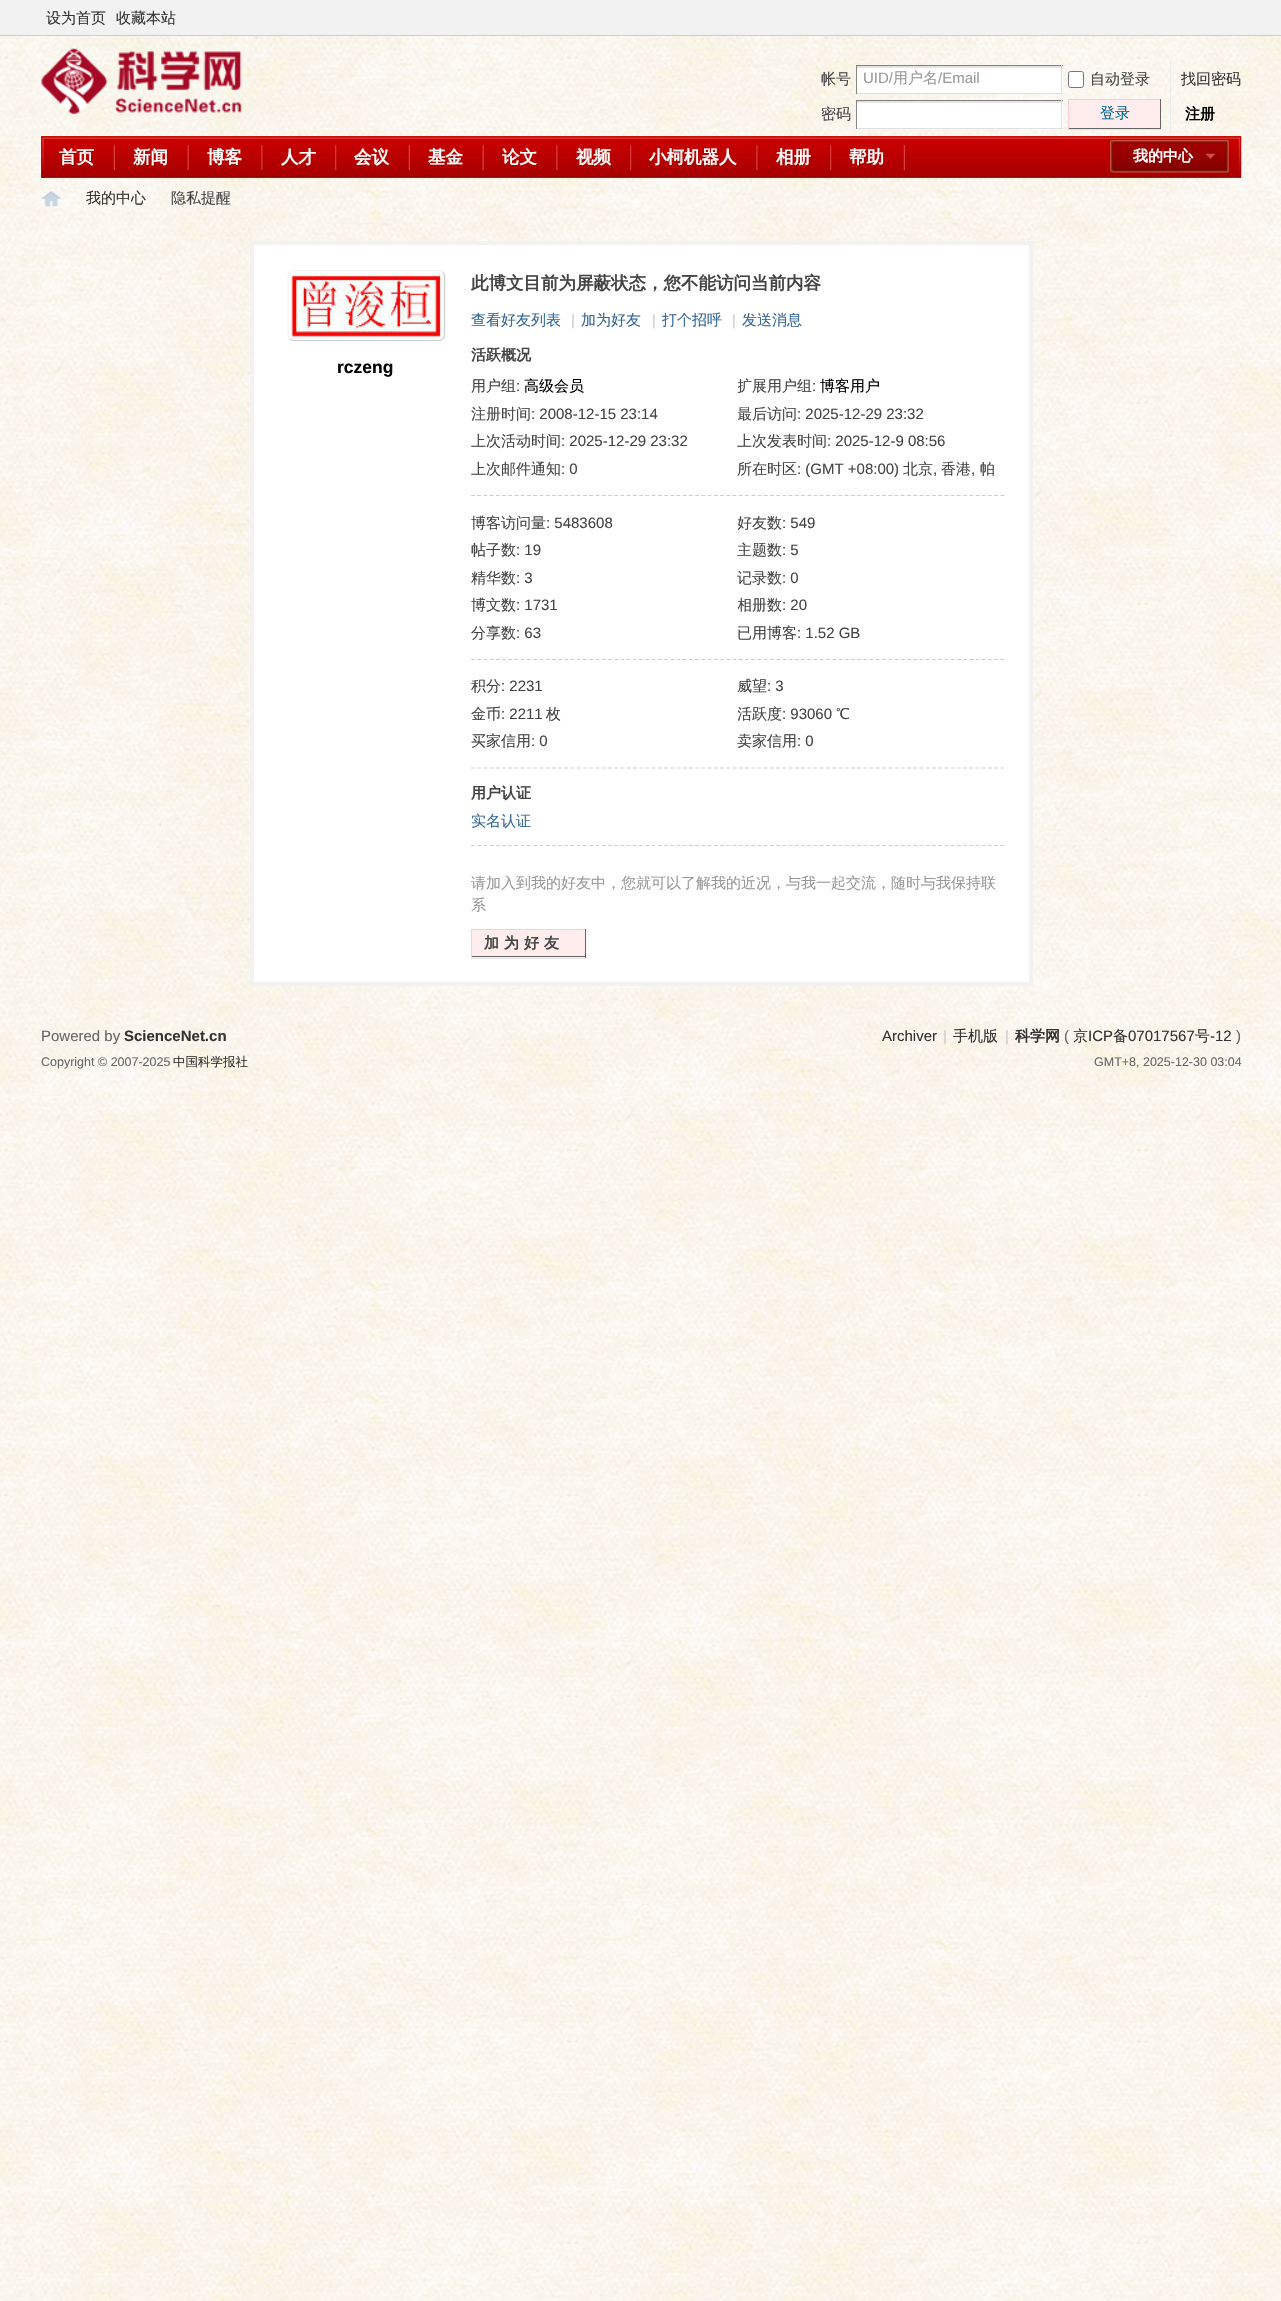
void draw(SkCanvas* canvas) {
	SkPaint paint;
	paint.setAntiAlias(true);
	auto spacedText = [&](const char* s, float x, float y, const SkFont& font, const SkPaint& ink, float letter, float word) {
		std::vector<SkGlyphID> glyphs(font.countText(s, strlen(s), SkTextEncoding::kUTF8));
		std::vector<float> xs(glyphs.size());
		font.textToGlyphs(s, strlen(s), SkTextEncoding::kUTF8, glyphs);
		font.getXPos(glyphs, xs, x);
		float extra = 0;
		for (size_t i = 0; i < glyphs.size(); i++) {
			xs[i] += extra;
			extra += letter + word * (glyphs[i] == font.unicharToGlyph(' '));
		}
		canvas->drawTextBlob(SkTextBlob::MakeFromPosHGlyphs(glyphs, xs, y, font), 0, 0, ink);
	};
	auto svgPath = [&](const char* data, bool evenOdd = false) {
		SkPath result = *SkParsePath::FromSVGString(data);
		if (evenOdd) result.setFillType(SkPathFillType::kEvenOdd);
		return result;
	};
	canvas->clear(0xffffffff);
	canvas->drawImageRect(SkImages::DeferredFromEncodedData(SkData::MakeFromFileName("img1.png")), SkRect::MakeXYWH(0, 36, 1281, 2265), SkSamplingOptions());
	paint.setColor(0xfff2f2f2);
	canvas->drawRect(SkRect::MakeXYWH(0, 0, 1281, 35), paint);
	paint.setColor(0xffcdcdcd);
	canvas->drawRect(SkRect::MakeXYWH(0, 35, 1281, 1), paint);
	SkFont f1(fontMgr->matchFamilyStyle("WenQuanYi Zen Hei", SkFontStyle(500, SkFontStyle::kNormal_Width, SkFontStyle::kUpright_Slant)), 15);
	f1.setSubpixel(true);
	paint.setColor(0xff333333);
	canvas->drawString("设为首页", 46, 23, f1, paint);
	canvas->drawString("收藏本站", 116, 23, f1, paint);
	canvas->drawImageRect(SkImages::DeferredFromEncodedData(SkData::MakeFromFileName("img2.png")), SkRect::MakeXYWH(41, 48, 201, 66), SkSamplingOptions());
	paint.setColor(0xff444444);
	canvas->drawString("帐号", 821, 84, f1, paint);
	paint.setColor(0xffffffff);
	canvas->drawRect(SkRect::MakeXYWH(857, 66, 206, 27), paint);
	canvas->drawImageRect(SkImages::DeferredFromEncodedData(SkData::MakeFromFileName("img3.png")), SkRect::MakeXYWH(857, 66, 206, 2), SkSamplingOptions());
	paint.setColor(0xff848484);
	canvas->drawRect(SkRect::MakeXYWH(856, 65, 207, 1), paint);
	paint.setColor(0xffe0e0e0);
	canvas->drawRect(SkRect::MakeXYWH(1061, 65, 1, 29), paint);
	canvas->drawRect(SkRect::MakeXYWH(856, 93, 207, 1), paint);
	paint.setColor(0xff848484);
	canvas->drawRect(SkRect::MakeXYWH(856, 65, 1, 29), paint);
	SkFont f2(fontMgr->matchFamilyStyle("Liberation Sans", SkFontStyle::Normal()), 15);
	f2.setSubpixel(true);
	paint.setColor(0xff999999);
	canvas->drawString("UID/", 863, 83, f2, paint);
	canvas->drawString("用户名", 893, 83, f1, paint);
	canvas->drawString("/Email", 938, 83, f2, paint);
	paint.setColor(0xffffffff);
	canvas->drawRoundRect(SkRect::MakeXYWH(1068.5, 71.5, 15, 16), 2, 2, paint);
	paint.setStroke(true);
	paint.setStrokeWidth(1);
	paint.setColor(0xff767676);
	canvas->drawRoundRect(SkRect::MakeXYWH(1068.5, 71.5, 15, 16), 2, 2, paint);
	paint.setStroke(false);
	paint.setColor(0xff444444);
	canvas->drawString("自动登录", 1090, 84, f1, paint);
	paint.setColor(0xff333333);
	canvas->drawString("找回密码", 1181, 84, f1, paint);
	paint.setColor(0xff444444);
	canvas->drawString("密码", 821, 119, f1, paint);
	paint.setColor(0xffffffff);
	canvas->drawRect(SkRect::MakeXYWH(857, 101, 206, 27), paint);
	canvas->drawImageRect(SkImages::DeferredFromEncodedData(SkData::MakeFromFileName("img3.png")), SkRect::MakeXYWH(857, 101, 206, 2), SkSamplingOptions());
	paint.setColor(0xff848484);
	canvas->drawRect(SkRect::MakeXYWH(856, 100, 207, 1), paint);
	paint.setColor(0xffe0e0e0);
	canvas->drawRect(SkRect::MakeXYWH(1061, 100, 1, 29), paint);
	canvas->drawRect(SkRect::MakeXYWH(856, 128, 207, 1), paint);
	paint.setColor(0xff848484);
	canvas->drawRect(SkRect::MakeXYWH(856, 100, 1, 29), paint);
	paint.setColor(0xffe5edf2);
	canvas->drawRect(SkRect::MakeXYWH(1170, 61, 1, 72), paint);
	paint.setColor(0xffe5e5e5);
	canvas->drawRect(SkRect::MakeXYWH(1068, 129, 93, 1), paint);
	paint.setColor(0xffffecec);
	canvas->drawRect(SkRect::MakeXYWH(1069, 100, 91, 28), paint);
	paint.setColor(0xffffcccc);
	canvas->drawRect(SkRect::MakeXYWH(1068, 99, 93, 1), paint);
	paint.setColor(0xff666666);
	canvas->drawRect(SkRect::MakeXYWH(1160, 99, 1, 30), paint);
	canvas->drawRect(SkRect::MakeXYWH(1068, 128, 93, 1), paint);
	paint.setColor(0xffffcccc);
	canvas->drawRect(SkRect::MakeXYWH(1068, 99, 1, 30), paint);
	paint.setColor(0xff006699);
	canvas->drawString("登录", 1100, 118, f1, paint);
	SkFont f3(fontMgr->matchFamilyStyle("WenQuanYi Zen Hei", SkFontStyle::Bold()), 15);
	f3.setSubpixel(true);
	paint.setColor(0xff000000);
	canvas->drawString("注册", 1185, 119, f3, paint);
	paint.setColor(0xffba350f);
	canvas->drawRect(SkRect::MakeXYWH(41, 136, 1200, 42), paint);
	canvas->drawImageRect(SkImages::DeferredFromEncodedData(SkData::MakeFromFileName("img4.png")), SkRect::MakeXYWH(41, 136, 1201, 42), SkSamplingOptions());
	canvas->drawImageRect(SkImages::DeferredFromEncodedData(SkData::MakeFromFileName("img5.png")), SkRect::MakeXYWH(113, 145, 2, 26), SkSamplingOptions());
	SkFont f4(fontMgr->matchFamilyStyle("WenQuanYi Zen Hei", SkFontStyle::Bold()), 17.5);
	f4.setSubpixel(true);
	paint.setColor(0xffffffff);
	canvas->drawString("首页", 59, 163, f4, paint);
	canvas->drawImageRect(SkImages::DeferredFromEncodedData(SkData::MakeFromFileName("img6.png")), SkRect::MakeXYWH(187, 145, 2, 26), SkSamplingOptions());
	canvas->drawString("新闻", 133, 163, f4, paint);
	canvas->drawImageRect(SkImages::DeferredFromEncodedData(SkData::MakeFromFileName("img7.png")), SkRect::MakeXYWH(261, 145, 2, 26), SkSamplingOptions());
	canvas->drawString("博客", 207, 163, f4, paint);
	canvas->drawImageRect(SkImages::DeferredFromEncodedData(SkData::MakeFromFileName("img8.png")), SkRect::MakeXYWH(335, 145, 2, 26), SkSamplingOptions());
	canvas->drawString("人才", 281, 163, f4, paint);
	canvas->drawImageRect(SkImages::DeferredFromEncodedData(SkData::MakeFromFileName("img9.png")), SkRect::MakeXYWH(408, 145, 2, 26), SkSamplingOptions());
	canvas->drawString("会议", 354, 163, f4, paint);
	canvas->drawImageRect(SkImages::DeferredFromEncodedData(SkData::MakeFromFileName("img10.png")), SkRect::MakeXYWH(482, 145, 2, 26), SkSamplingOptions());
	canvas->drawString("基金", 428, 163, f4, paint);
	canvas->drawImageRect(SkImages::DeferredFromEncodedData(SkData::MakeFromFileName("img7.png")), SkRect::MakeXYWH(556, 145, 2, 26), SkSamplingOptions());
	canvas->drawString("论文", 502, 163, f4, paint);
	canvas->drawImageRect(SkImages::DeferredFromEncodedData(SkData::MakeFromFileName("img8.png")), SkRect::MakeXYWH(630, 145, 2, 26), SkSamplingOptions());
	canvas->drawString("视频", 576, 163, f4, paint);
	canvas->drawImageRect(SkImages::DeferredFromEncodedData(SkData::MakeFromFileName("img7.png")), SkRect::MakeXYWH(756, 145, 2, 26), SkSamplingOptions());
	canvas->drawString("小柯机器人", 649, 163, f4, paint);
	canvas->drawImageRect(SkImages::DeferredFromEncodedData(SkData::MakeFromFileName("img8.png")), SkRect::MakeXYWH(830, 145, 2, 26), SkSamplingOptions());
	canvas->drawString("相册", 776, 163, f4, paint);
	canvas->drawImageRect(SkImages::DeferredFromEncodedData(SkData::MakeFromFileName("img9.png")), SkRect::MakeXYWH(903, 145, 2, 26), SkSamplingOptions());
	canvas->drawString("帮助", 849, 163, f4, paint);
	canvas->drawImageRect(SkImages::DeferredFromEncodedData(SkData::MakeFromFileName("img11.png")), SkRect::MakeXYWH(1110, 140, 119, 33), SkSamplingOptions());
	canvas->drawString("我的中心", 1133, 161, f3, paint);
	canvas->drawImageRect(SkImages::DeferredFromEncodedData(SkData::MakeFromFileName("img12.png")), SkRect::MakeXYWH(41, 191, 21, 16), SkSamplingOptions());
	paint.setColor(0xff333333);
	canvas->drawString("我的中心", 86, 203, f1, paint);
	paint.setColor(0xff444444);
	canvas->drawString("隐私提醒", 171, 203, f1, paint);
	paint.setColor(0xffffffff);
	canvas->drawRect(SkRect::MakeXYWH(252, 243, 779, 741), paint);
	paint.setStroke(true);
	paint.setStrokeWidth(4);
	paint.setColor(0xfff2f2f2);
	canvas->drawRect(SkRect::MakeXYWH(252, 243, 779, 741), paint);
	paint.setStrokeWidth(1.2);
	paint.setColor(0xffcdcdcd);
	canvas->drawPath(svgPath("M442.5 272.5C444 273.5 444.5 275 444.5 276V335C444.5 336.5 444 338 442.5 339C441.5 340 440 340.5 439 340.5H294C292.5 340.5 291 340 290 339"), paint);
	paint.setColor(0xfff2f2f2);
	canvas->drawPath(svgPath("M290 339C288.5 338 288 336.5 288 335V276C288 275 288.5 273.5 290 272.5C291 271 292.5 270.5 294 270.5H439C440 270.5 441.5 271 442.5 272.5"), paint);
	canvas->drawImageRect(SkImages::DeferredFromEncodedData(SkData::MakeFromFileName("img13.png")), SkRect::MakeXYWH(291, 274, 150, 64), SkSamplingOptions());
	SkFont f5(fontMgr->matchFamilyStyle("Liberation Sans", SkFontStyle::Bold()), 17.5);
	f5.setSubpixel(true);
	paint.setStroke(false);
	paint.setColor(0xff000000);
	canvas->drawString("rczeng", 337, 373, f5, paint);
	paint.setColor(0xff444444);
	canvas->drawString("此博文目前为屏蔽状态，您不能访问当前内容", 471, 289, f4, paint);
	paint.setColor(0xff336699);
	canvas->drawString("查看好友列表", 471, 325, f1, paint);
	paint.setColor(0xffcccccc);
	canvas->drawString("|", 571, 325, f2, paint);
	paint.setColor(0xff336699);
	canvas->drawString("加为好友", 581, 325, f1, paint);
	paint.setColor(0xffcccccc);
	canvas->drawString("|", 652, 325, f2, paint);
	paint.setColor(0xff336699);
	canvas->drawString("打个招呼", 662, 325, f1, paint);
	paint.setColor(0xffcccccc);
	canvas->drawString("|", 732, 325, f2, paint);
	paint.setColor(0xff336699);
	canvas->drawString("发送消息", 742, 325, f1, paint);
	paint.setStroke(true);
	paint.setColor(0xffcdcdcd);
	paint.setPathEffect(SkDashPathEffect::Make({{3.75f, 2.48f}}, 0));
	canvas->drawPath(svgPath("M471 495.5H1004"), paint);
	paint.setPathEffect(nullptr);
	paint.setStroke(false);
	paint.setColor(0xff444444);
	canvas->drawString("活跃概况", 471, 360, f3, paint);
	canvas->drawString("用户组", 471, 391, f1, paint);
	canvas->drawString(":", 516, 391, f2, paint);
	paint.setColor(0xff000000);
	canvas->drawString("高级会员", 524, 391, f1, paint);
	canvas->save();
	canvas->clipRect(SkRect::MakeXYWH(738, 375, 266, 23));
	paint.setColor(0xff444444);
	canvas->drawString("扩展用户组", 737, 391, f1, paint);
	canvas->restore();
	canvas->drawString(":", 812, 391, f2, paint);
	paint.setColor(0xff000000);
	canvas->drawString("博客用户", 820, 391, f1, paint);
	paint.setColor(0xff444444);
	canvas->drawString("注册时间", 471, 419, f1, paint);
	canvas->drawString(": 2008-12-15 23:14", 531, 419, f2, paint);
	canvas->save();
	canvas->clipRect(SkRect::MakeXYWH(738, 403, 266, 22));
	canvas->drawString("最后访问", 737, 419, f1, paint);
	canvas->restore();
	canvas->drawString(": 2025-12-29 23:32", 797, 419, f2, paint);
	canvas->drawString("上次活动时间", 471, 446, f1, paint);
	canvas->drawString(": 2025-12-29 23:32", 561, 446, f2, paint);
	canvas->drawString("上次发表时间", 737, 446, f1, paint);
	canvas->drawString(": 2025-12-9 08:56", 827, 446, f2, paint);
	canvas->drawString("上次邮件通知", 471, 474, f1, paint);
	canvas->drawString(": 0", 561, 474, f2, paint);
	canvas->drawString("所在时区", 737, 474, f1, paint);
	canvas->drawString(": (GMT +08:00)", 797, 474, f2, paint);
	canvas->drawString("北京", 903, 474, f1, paint);
	canvas->drawString(",", 933, 474, f2, paint);
	canvas->drawString("香港", 941, 474, f1, paint);
	canvas->drawString(",", 971, 474, f2, paint);
	canvas->drawString("帕", 980, 474, f1, paint);
	paint.setStroke(true);
	paint.setColor(0xffcdcdcd);
	paint.setPathEffect(SkDashPathEffect::Make({{3.75f, 2.48f}}, 0));
	canvas->drawPath(svgPath("M471 659.5H1004"), paint);
	paint.setPathEffect(nullptr);
	paint.setStroke(false);
	paint.setColor(0xff444444);
	canvas->drawString("博客访问量", 471, 528, f1, paint);
	canvas->drawString(": 5483608", 546, 528, f2, paint);
	canvas->save();
	canvas->clipRect(SkRect::MakeXYWH(738, 511, 266, 23));
	canvas->drawString("好友数", 737, 528, f1, paint);
	canvas->restore();
	canvas->drawString(": 549", 782, 528, f2, paint);
	canvas->drawString("帖子数", 471, 555, f1, paint);
	canvas->drawString(": 19", 516, 555, f2, paint);
	canvas->drawString("主题数", 737, 555, f1, paint);
	canvas->drawString(": 5", 782, 555, f2, paint);
	canvas->drawString("精华数", 471, 583, f1, paint);
	canvas->drawString(": 3", 516, 583, f2, paint);
	canvas->drawString("记录数", 737, 583, f1, paint);
	canvas->drawString(": 0", 782, 583, f2, paint);
	canvas->drawString("博文数", 471, 610, f1, paint);
	canvas->drawString(": 1731", 516, 610, f2, paint);
	canvas->save();
	canvas->clipRect(SkRect::MakeXYWH(738, 594, 266, 22));
	canvas->drawString("相册数", 737, 610, f1, paint);
	canvas->restore();
	canvas->drawString(": 20", 782, 610, f2, paint);
	canvas->drawString("分享数", 471, 638, f1, paint);
	canvas->drawString(": 63", 516, 638, f2, paint);
	canvas->drawString("已用博客", 737, 638, f1, paint);
	canvas->drawString(": 1.52 GB", 797, 638, f2, paint);
	paint.setStroke(true);
	paint.setColor(0xffcdcdcd);
	paint.setPathEffect(SkDashPathEffect::Make({{3.75f, 2.48f}}, 0));
	canvas->drawPath(svgPath("M471 768H1004"), paint);
	paint.setPathEffect(nullptr);
	paint.setStroke(false);
	paint.setColor(0xff444444);
	canvas->drawString("积分", 471, 691, f1, paint);
	canvas->drawString(": 2231", 501, 691, f2, paint);
	canvas->drawString("威望", 737, 691, f1, paint);
	canvas->drawString(": 3", 767, 691, f2, paint);
	canvas->drawString("金币", 471, 719, f1, paint);
	canvas->drawString(": 2211", 501, 719, f2, paint);
	canvas->drawString("枚", 546, 719, f1, paint);
	canvas->save();
	canvas->clipRect(SkRect::MakeXYWH(738, 703, 266, 22));
	canvas->drawString("活跃度", 737, 719, f1, paint);
	canvas->restore();
	canvas->drawString(": 93060", 782, 719, f2, paint);
	canvas->drawString("℃", 836, 719, f1, paint);
	canvas->drawString("买家信用", 471, 746, f1, paint);
	canvas->drawString(": 0", 531, 746, f2, paint);
	canvas->drawString("卖家信用", 737, 746, f1, paint);
	canvas->drawString(": 0", 797, 746, f2, paint);
	paint.setStroke(true);
	paint.setColor(0xffcdcdcd);
	paint.setPathEffect(SkDashPathEffect::Make({{3.75f, 2.48f}}, 0));
	canvas->drawPath(svgPath("M471 845.5H1004"), paint);
	paint.setPathEffect(nullptr);
	paint.setStroke(false);
	paint.setColor(0xff444444);
	canvas->drawString("用户认证", 471, 798, f3, paint);
	paint.setColor(0xff336699);
	canvas->drawString("实名认证", 471, 826, f1, paint);
	paint.setColor(0xff999999);
	canvas->drawString("请加入到我的好友中，您就可以了解我的近况，与我一起交流，随时与我保持联", 471, 888, f1, paint);
	canvas->drawString("系", 471, 910, f1, paint);
	paint.setColor(0xffe5e5e5);
	canvas->drawPath(svgPath("M471 930V959H586V958H471Z"), paint);
	paint.setColor(0xffffecec);
	canvas->drawRect(SkRect::MakeXYWH(472, 930, 113, 28), paint);
	paint.setColor(0xffffcccc);
	canvas->drawRect(SkRect::MakeXYWH(471, 929, 115, 1), paint);
	paint.setColor(0xff666666);
	canvas->drawRect(SkRect::MakeXYWH(585, 929, 1, 29), paint);
	canvas->drawRect(SkRect::MakeXYWH(471, 956, 115, 1), paint);
	paint.setColor(0xffffcccc);
	canvas->drawRect(SkRect::MakeXYWH(471, 929, 1, 29), paint);
	paint.setColor(0xff444444);
	spacedText("加为好友", 484, 948, f3, paint, 5, 0);
	paint.setColor(0xff666666);
	canvas->drawString("Powered by", 41, 1041, f2, paint);
	SkFont f6(fontMgr->matchFamilyStyle("Liberation Sans", SkFontStyle::Bold()), 15);
	f6.setSubpixel(true);
	paint.setColor(0xff333333);
	canvas->drawString("ScienceNet.cn", 124, 1041, f6, paint);
	SkFont f7(fontMgr->matchFamilyStyle("Liberation Sans", SkFontStyle::Normal()), 12.5);
	f7.setSubpixel(true);
	paint.setColor(0xff666666);
	canvas->drawString("Copyright © 2007-2025", 41, 1066, f7, paint);
	SkFont f8(fontMgr->matchFamilyStyle("WenQuanYi Zen Hei", SkFontStyle(500, SkFontStyle::kNormal_Width, SkFontStyle::kUpright_Slant)), 12.5);
	f8.setSubpixel(true);
	paint.setColor(0xff333333);
	canvas->drawString("中国科学报社", 173, 1066, f8, paint);
	canvas->drawString("Archiver", 882, 1041, f2, paint);
	paint.setColor(0xffcccccc);
	canvas->drawString("|", 943, 1041, f2, paint);
	paint.setColor(0xff333333);
	canvas->drawString("手机版", 953, 1041, f1, paint);
	paint.setColor(0xffcccccc);
	canvas->drawString("|", 1005, 1041, f2, paint);
	paint.setColor(0xff333333);
	canvas->drawString("科学网", 1015, 1041, f3, paint);
	paint.setColor(0xff666666);
	canvas->drawString("(", 1064, 1041, f2, paint);
	paint.setColor(0xff333333);
	canvas->drawString("京", 1073, 1041, f1, paint);
	canvas->drawString("ICP", 1088, 1041, f2, paint);
	canvas->drawString("备", 1113, 1041, f1, paint);
	canvas->drawString("07017567", 1128, 1041, f2, paint);
	canvas->drawString("号", 1195, 1041, f1, paint);
	canvas->drawString("-12", 1210, 1041, f2, paint);
	paint.setColor(0xff666666);
	canvas->drawString(")", 1236, 1041, f2, paint);
	canvas->drawString("GMT+8, 2025-12-30 03:04", 1094, 1066, f7, paint);
}
